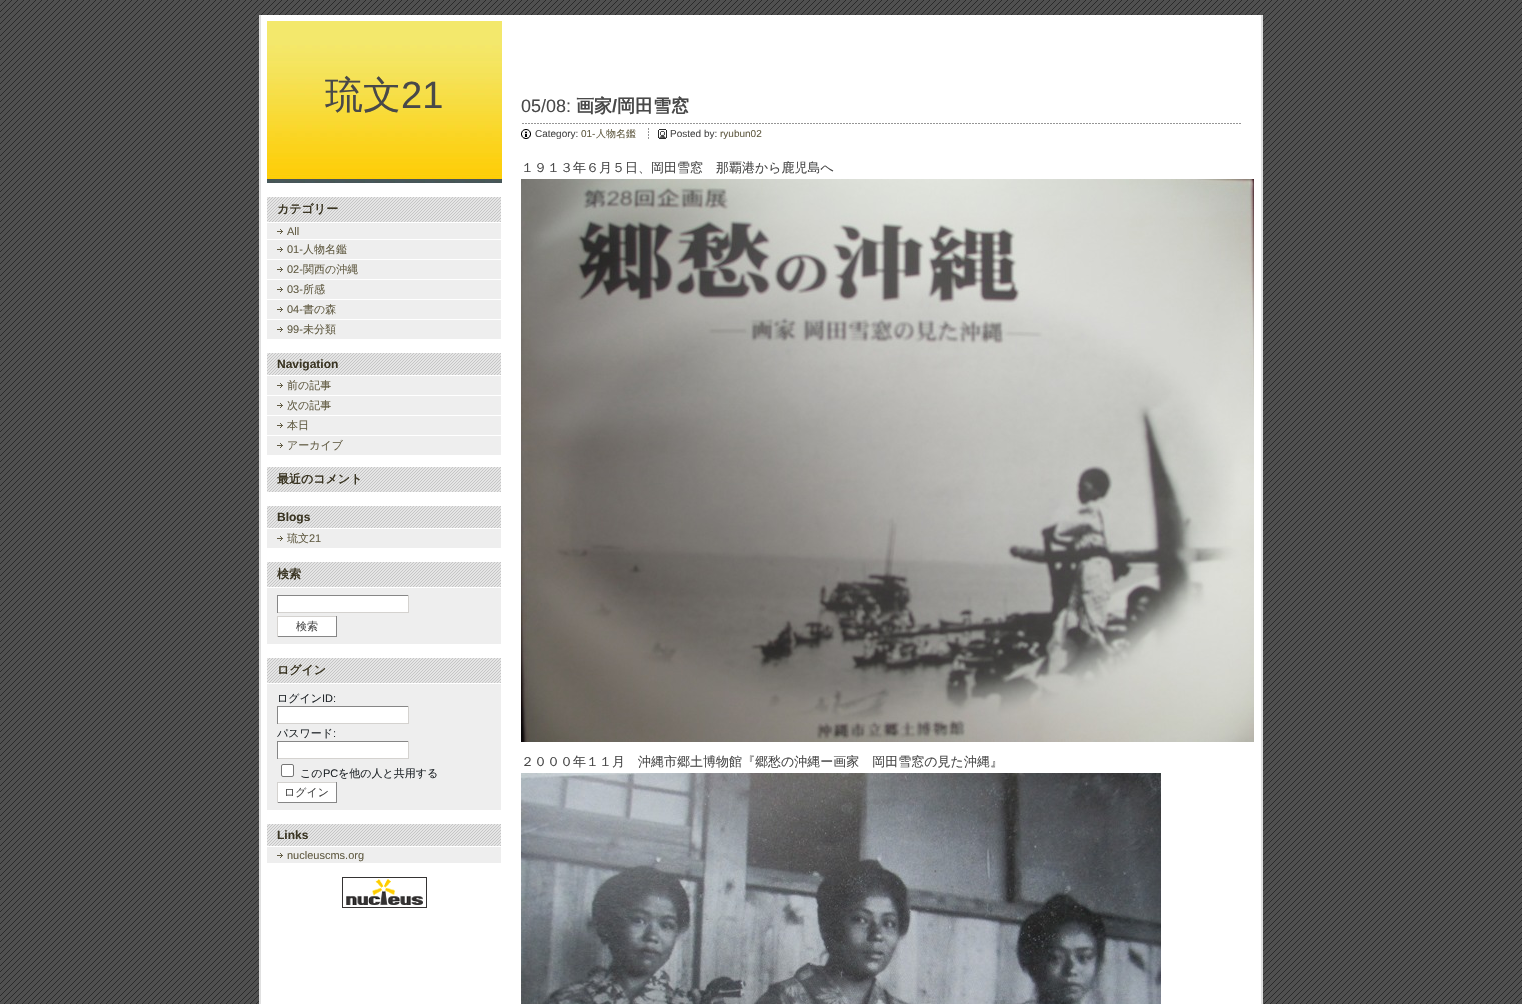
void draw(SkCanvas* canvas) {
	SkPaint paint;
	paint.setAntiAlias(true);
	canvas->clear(0xffffffff);
	canvas->drawImageRect(SkImages::DeferredFromEncodedData(SkData::MakeFromFileName("img1.png")), SkRect::MakeXYWH(0, 0, 1522, 1004), SkSamplingOptions());
	paint.setColor(0xffffffff);
	canvas->drawRect(SkRect::MakeXYWH(261, 15, 1000, 989), paint);
	paint.setColor(0xffe0e0e0);
	canvas->drawRect(SkRect::MakeXYWH(1261, 15, 2, 989), paint);
	canvas->drawRect(SkRect::MakeXYWH(259, 15, 2, 989), paint);
	canvas->drawImageRect(SkImages::DeferredFromEncodedData(SkData::MakeFromFileName("img2.png")), SkRect::MakeXYWH(267, 21, 235, 162), SkSamplingOptions());
	SkFont f1(fontMgr->matchFamilyStyle("WenQuanYi Zen Hei", SkFontStyle(500, SkFontStyle::kNormal_Width, SkFontStyle::kUpright_Slant)), 38);
	f1.setSubpixel(true);
	paint.setColor(0xff494949);
	canvas->drawString("琉文", 325, 108, f1, paint);
	SkFont f2(fontMgr->matchFamilyStyle("Liberation Sans", SkFontStyle::Normal()), 38);
	f2.setSubpixel(true);
	canvas->drawString("21", 401, 108, f2, paint);
	canvas->drawImageRect(SkImages::DeferredFromEncodedData(SkData::MakeFromFileName("img3.png")), SkRect::MakeXYWH(522, 123, 719, 1), SkSamplingOptions());
	SkFont f3(fontMgr->matchFamilyStyle("Liberation Sans", SkFontStyle::Normal()), 18);
	f3.setSubpixel(true);
	canvas->drawString("05/08:", 521, 112, f3, paint);
	SkFont f4(fontMgr->matchFamilyStyle("WenQuanYi Zen Hei", SkFontStyle::Bold()), 18);
	f4.setSubpixel(true);
	canvas->drawString("画家", 576, 112, f4, paint);
	SkFont f5(fontMgr->matchFamilyStyle("Liberation Sans", SkFontStyle::Bold()), 18);
	f5.setSubpixel(true);
	canvas->drawString("/", 612, 112, f5, paint);
	canvas->drawString("岡田雪窓", 617, 112, f4, paint);
	canvas->drawImageRect(SkImages::DeferredFromEncodedData(SkData::MakeFromFileName("img4.png")), SkRect::MakeXYWH(521, 129, 10, 10), SkSamplingOptions());
	SkFont f6(fontMgr->matchFamilyStyle("Liberation Sans", SkFontStyle::Normal()), 10);
	f6.setSubpixel(true);
	canvas->drawString("Category:", 535, 137, f6, paint);
	paint.setColor(0xff635d45);
	canvas->drawString("01-", 581, 137, f6, paint);
	SkFont f7(fontMgr->matchFamilyStyle("WenQuanYi Zen Hei", SkFontStyle(500, SkFontStyle::kNormal_Width, SkFontStyle::kUpright_Slant)), 10);
	f7.setSubpixel(true);
	canvas->drawString("人物名鑑", 596, 137, f7, paint);
	canvas->drawImageRect(SkImages::DeferredFromEncodedData(SkData::MakeFromFileName("img5.png")), SkRect::MakeXYWH(648, 128, 1, 11), SkSamplingOptions());
	canvas->drawImageRect(SkImages::DeferredFromEncodedData(SkData::MakeFromFileName("img6.png")), SkRect::MakeXYWH(658, 129, 9, 10), SkSamplingOptions());
	paint.setColor(0xff494949);
	canvas->drawString("Posted by:", 670, 137, f6, paint);
	paint.setColor(0xff635d45);
	canvas->drawString("ryubun02", 720, 137, f6, paint);
	SkFont f8(fontMgr->matchFamilyStyle("WenQuanYi Zen Hei", SkFontStyle(500, SkFontStyle::kNormal_Width, SkFontStyle::kUpright_Slant)), 13);
	f8.setSubpixel(true);
	paint.setColor(0xff494949);
	canvas->drawString("１９１３年６月５日、岡田雪窓　那覇港から鹿児島へ", 521, 172, f8, paint);
	canvas->drawImageRect(SkImages::DeferredFromEncodedData(SkData::MakeFromFileName("img7.png")), SkRect::MakeXYWH(521, 179, 733, 563), SkSamplingOptions());
	canvas->drawString("２０００年１１月　沖縄市郷土博物館『郷愁の沖縄ー画家　岡田雪窓の見た沖縄』", 521, 766, f8, paint);
	canvas->drawImageRect(SkImages::DeferredFromEncodedData(SkData::MakeFromFileName("img8.png")), SkRect::MakeXYWH(521, 773, 640, 231), SkSamplingOptions());
	paint.setColor(0xffe5e5e5);
	canvas->drawRect(SkRect::MakeXYWH(267, 197, 234, 25), paint);
	canvas->drawImageRect(SkImages::DeferredFromEncodedData(SkData::MakeFromFileName("img9.png")), SkRect::MakeXYWH(267, 197, 234, 25), SkSamplingOptions());
	SkFont f9(fontMgr->matchFamilyStyle("WenQuanYi Zen Hei", SkFontStyle::Bold()), 12);
	f9.setSubpixel(true);
	paint.setColor(0xff3a3523);
	canvas->drawString("カテゴリー", 277, 213, f9, paint);
	paint.setColor(0xffeeeeee);
	canvas->drawRect(SkRect::MakeXYWH(267, 223, 234, 16), paint);
	canvas->drawImageRect(SkImages::DeferredFromEncodedData(SkData::MakeFromFileName("img10.png")), SkRect::MakeXYWH(277, 229, 6, 5), SkSamplingOptions());
	SkFont f10(fontMgr->matchFamilyStyle("Liberation Sans", SkFontStyle::Normal()), 11);
	f10.setSubpixel(true);
	paint.setColor(0xff635d45);
	canvas->drawString("All", 287, 235, f10, paint);
	paint.setColor(0xffeeeeee);
	canvas->drawRect(SkRect::MakeXYWH(267, 240, 234, 19), paint);
	canvas->drawImageRect(SkImages::DeferredFromEncodedData(SkData::MakeFromFileName("img10.png")), SkRect::MakeXYWH(277, 247, 6, 5), SkSamplingOptions());
	paint.setColor(0xff635d45);
	canvas->drawString("01-", 287, 253, f10, paint);
	SkFont f11(fontMgr->matchFamilyStyle("WenQuanYi Zen Hei", SkFontStyle(500, SkFontStyle::kNormal_Width, SkFontStyle::kUpright_Slant)), 11);
	f11.setSubpixel(true);
	canvas->drawString("人物名鑑", 303, 253, f11, paint);
	paint.setColor(0xffeeeeee);
	canvas->drawRect(SkRect::MakeXYWH(267, 260, 234, 19), paint);
	canvas->drawImageRect(SkImages::DeferredFromEncodedData(SkData::MakeFromFileName("img10.png")), SkRect::MakeXYWH(277, 267, 6, 5), SkSamplingOptions());
	paint.setColor(0xff635d45);
	canvas->drawString("02-", 287, 273, f10, paint);
	canvas->drawString("関西の沖縄", 303, 273, f11, paint);
	paint.setColor(0xffeeeeee);
	canvas->drawRect(SkRect::MakeXYWH(267, 280, 234, 19), paint);
	canvas->drawImageRect(SkImages::DeferredFromEncodedData(SkData::MakeFromFileName("img10.png")), SkRect::MakeXYWH(277, 287, 6, 5), SkSamplingOptions());
	paint.setColor(0xff635d45);
	canvas->drawString("03-", 287, 293, f10, paint);
	canvas->drawString("所感", 303, 293, f11, paint);
	paint.setColor(0xffeeeeee);
	canvas->drawRect(SkRect::MakeXYWH(267, 300, 234, 19), paint);
	canvas->drawImageRect(SkImages::DeferredFromEncodedData(SkData::MakeFromFileName("img10.png")), SkRect::MakeXYWH(277, 307, 6, 5), SkSamplingOptions());
	paint.setColor(0xff635d45);
	canvas->drawString("04-", 287, 313, f10, paint);
	canvas->drawString("書の森", 303, 313, f11, paint);
	paint.setColor(0xffeeeeee);
	canvas->drawRect(SkRect::MakeXYWH(267, 320, 234, 19), paint);
	canvas->drawImageRect(SkImages::DeferredFromEncodedData(SkData::MakeFromFileName("img10.png")), SkRect::MakeXYWH(277, 327, 6, 5), SkSamplingOptions());
	paint.setColor(0xff635d45);
	canvas->drawString("99-", 287, 333, f10, paint);
	canvas->drawString("未分類", 303, 333, f11, paint);
	paint.setColor(0xffe5e5e5);
	canvas->drawRect(SkRect::MakeXYWH(267, 353, 234, 22), paint);
	canvas->drawImageRect(SkImages::DeferredFromEncodedData(SkData::MakeFromFileName("img11.png")), SkRect::MakeXYWH(267, 353, 234, 22), SkSamplingOptions());
	SkFont f12(fontMgr->matchFamilyStyle("Liberation Sans", SkFontStyle::Bold()), 12);
	f12.setSubpixel(true);
	paint.setColor(0xff3a3523);
	canvas->drawString("Navigation", 277, 368, f12, paint);
	paint.setColor(0xffeeeeee);
	canvas->drawRect(SkRect::MakeXYWH(267, 376, 234, 19), paint);
	canvas->drawImageRect(SkImages::DeferredFromEncodedData(SkData::MakeFromFileName("img10.png")), SkRect::MakeXYWH(277, 383, 6, 5), SkSamplingOptions());
	paint.setColor(0xff635d45);
	canvas->drawString("前の記事", 287, 389, f11, paint);
	paint.setColor(0xffeeeeee);
	canvas->drawRect(SkRect::MakeXYWH(267, 396, 234, 19), paint);
	canvas->drawImageRect(SkImages::DeferredFromEncodedData(SkData::MakeFromFileName("img10.png")), SkRect::MakeXYWH(277, 403, 6, 5), SkSamplingOptions());
	paint.setColor(0xff635d45);
	canvas->drawString("次の記事", 287, 409, f11, paint);
	paint.setColor(0xffeeeeee);
	canvas->drawRect(SkRect::MakeXYWH(267, 416, 234, 19), paint);
	canvas->drawImageRect(SkImages::DeferredFromEncodedData(SkData::MakeFromFileName("img10.png")), SkRect::MakeXYWH(277, 423, 6, 5), SkSamplingOptions());
	paint.setColor(0xff635d45);
	canvas->drawString("本日", 287, 429, f11, paint);
	paint.setColor(0xffeeeeee);
	canvas->drawRect(SkRect::MakeXYWH(267, 436, 234, 19), paint);
	canvas->drawImageRect(SkImages::DeferredFromEncodedData(SkData::MakeFromFileName("img10.png")), SkRect::MakeXYWH(277, 443, 6, 5), SkSamplingOptions());
	paint.setColor(0xff635d45);
	canvas->drawString("アーカイブ", 287, 449, f11, paint);
	paint.setColor(0xffe5e5e5);
	canvas->drawRect(SkRect::MakeXYWH(267, 467, 234, 25), paint);
	canvas->drawImageRect(SkImages::DeferredFromEncodedData(SkData::MakeFromFileName("img9.png")), SkRect::MakeXYWH(267, 467, 234, 25), SkSamplingOptions());
	paint.setColor(0xff3a3523);
	canvas->drawString("最近のコメント", 277, 483, f9, paint);
	paint.setColor(0xffe5e5e5);
	canvas->drawRect(SkRect::MakeXYWH(267, 506, 234, 22), paint);
	canvas->drawImageRect(SkImages::DeferredFromEncodedData(SkData::MakeFromFileName("img11.png")), SkRect::MakeXYWH(267, 506, 234, 22), SkSamplingOptions());
	paint.setColor(0xff3a3523);
	canvas->drawString("Blogs", 277, 521, f12, paint);
	paint.setColor(0xffeeeeee);
	canvas->drawRect(SkRect::MakeXYWH(267, 529, 234, 19), paint);
	canvas->drawImageRect(SkImages::DeferredFromEncodedData(SkData::MakeFromFileName("img10.png")), SkRect::MakeXYWH(277, 536, 6, 5), SkSamplingOptions());
	paint.setColor(0xff635d45);
	canvas->drawString("琉文", 287, 542, f11, paint);
	canvas->drawString("21", 309, 542, f10, paint);
	paint.setColor(0xffe5e5e5);
	canvas->drawRect(SkRect::MakeXYWH(267, 562, 234, 25), paint);
	canvas->drawImageRect(SkImages::DeferredFromEncodedData(SkData::MakeFromFileName("img9.png")), SkRect::MakeXYWH(267, 562, 234, 25), SkSamplingOptions());
	paint.setColor(0xff3a3523);
	canvas->drawString("検索", 277, 578, f9, paint);
	paint.setColor(0xffeeeeee);
	canvas->drawRect(SkRect::MakeXYWH(267, 588, 234, 56), paint);
	paint.setColor(0xffffffff);
	canvas->drawRect(SkRect::MakeXYWH(278, 596, 130, 16), paint);
	paint.setColor(0xff868686);
	canvas->drawRect(SkRect::MakeXYWH(277, 595, 132, 1), paint);
	paint.setColor(0xffd4d2cf);
	canvas->drawRect(SkRect::MakeXYWH(408, 595, 1, 18), paint);
	canvas->drawRect(SkRect::MakeXYWH(277, 612, 132, 1), paint);
	paint.setColor(0xff868686);
	canvas->drawRect(SkRect::MakeXYWH(277, 595, 1, 18), paint);
	paint.setColor(0xffffffff);
	canvas->drawRect(SkRect::MakeXYWH(278, 617, 58, 19), paint);
	paint.setColor(0xffd4d2cf);
	canvas->drawRect(SkRect::MakeXYWH(277, 616, 60, 1), paint);
	paint.setColor(0xff868686);
	canvas->drawRect(SkRect::MakeXYWH(336, 616, 1, 21), paint);
	canvas->drawRect(SkRect::MakeXYWH(277, 636, 60, 1), paint);
	paint.setColor(0xffd4d2cf);
	canvas->drawRect(SkRect::MakeXYWH(277, 616, 1, 21), paint);
	paint.setColor(0xff494949);
	canvas->drawString("検索", 296, 630, f11, paint);
	paint.setColor(0xffe5e5e5);
	canvas->drawRect(SkRect::MakeXYWH(267, 658, 234, 25), paint);
	canvas->drawImageRect(SkImages::DeferredFromEncodedData(SkData::MakeFromFileName("img9.png")), SkRect::MakeXYWH(267, 658, 234, 25), SkSamplingOptions());
	paint.setColor(0xff3a3523);
	canvas->drawString("ログイン", 277, 674, f9, paint);
	paint.setColor(0xffeeeeee);
	canvas->drawRect(SkRect::MakeXYWH(267, 684, 234, 126), paint);
	paint.setColor(0xff21262a);
	canvas->drawString("ログイン", 277, 702, f11, paint);
	canvas->drawString("ID:", 322, 702, f10, paint);
	paint.setColor(0xffffffff);
	canvas->drawRect(SkRect::MakeXYWH(278, 707, 130, 16), paint);
	paint.setColor(0xff868686);
	canvas->drawRect(SkRect::MakeXYWH(277, 706, 132, 1), paint);
	paint.setColor(0xffd4d2cf);
	canvas->drawRect(SkRect::MakeXYWH(408, 706, 1, 18), paint);
	canvas->drawRect(SkRect::MakeXYWH(277, 723, 132, 1), paint);
	paint.setColor(0xff868686);
	canvas->drawRect(SkRect::MakeXYWH(277, 706, 1, 18), paint);
	paint.setColor(0xff21262a);
	canvas->drawString("パスワード", 277, 737, f11, paint);
	canvas->drawString(":", 333, 737, f10, paint);
	paint.setColor(0xffffffff);
	canvas->drawRect(SkRect::MakeXYWH(278, 742, 130, 16), paint);
	paint.setColor(0xff868686);
	canvas->drawRect(SkRect::MakeXYWH(277, 741, 132, 1), paint);
	paint.setColor(0xffd4d2cf);
	canvas->drawRect(SkRect::MakeXYWH(408, 741, 1, 18), paint);
	canvas->drawRect(SkRect::MakeXYWH(277, 758, 132, 1), paint);
	paint.setColor(0xff868686);
	canvas->drawRect(SkRect::MakeXYWH(277, 741, 1, 18), paint);
	paint.setColor(0xffffffff);
	canvas->drawRoundRect(SkRect::MakeXYWH(281.5, 764.5, 12, 12), 1.5, 1.5, paint);
	paint.setStroke(true);
	paint.setStrokeWidth(1);
	paint.setColor(0xff767676);
	canvas->drawRoundRect(SkRect::MakeXYWH(281.5, 764.5, 12, 12), 1.5, 1.5, paint);
	paint.setStroke(false);
	paint.setColor(0xff21262a);
	canvas->drawString("この", 300, 777, f11, paint);
	canvas->drawString("PC", 323, 777, f10, paint);
	canvas->drawString("を他の人と共用する", 338, 777, f11, paint);
	paint.setColor(0xffffffff);
	canvas->drawRect(SkRect::MakeXYWH(278, 783, 58, 19), paint);
	paint.setColor(0xffd4d2cf);
	canvas->drawRect(SkRect::MakeXYWH(277, 782, 60, 1), paint);
	paint.setColor(0xff868686);
	canvas->drawRect(SkRect::MakeXYWH(336, 782, 1, 21), paint);
	canvas->drawRect(SkRect::MakeXYWH(277, 802, 60, 1), paint);
	paint.setColor(0xffd4d2cf);
	canvas->drawRect(SkRect::MakeXYWH(277, 782, 1, 21), paint);
	paint.setColor(0xff494949);
	canvas->drawString("ログイン", 284, 796, f11, paint);
	paint.setColor(0xffe5e5e5);
	canvas->drawRect(SkRect::MakeXYWH(267, 824, 234, 22), paint);
	canvas->drawImageRect(SkImages::DeferredFromEncodedData(SkData::MakeFromFileName("img11.png")), SkRect::MakeXYWH(267, 824, 234, 22), SkSamplingOptions());
	paint.setColor(0xff3a3523);
	canvas->drawString("Links", 277, 839, f12, paint);
	paint.setColor(0xffeeeeee);
	canvas->drawRect(SkRect::MakeXYWH(267, 847, 234, 16), paint);
	canvas->drawImageRect(SkImages::DeferredFromEncodedData(SkData::MakeFromFileName("img10.png")), SkRect::MakeXYWH(277, 853, 6, 5), SkSamplingOptions());
	paint.setColor(0xff635d45);
	canvas->drawString("nucleuscms.org", 287, 859, f10, paint);
	canvas->drawImageRect(SkImages::DeferredFromEncodedData(SkData::MakeFromFileName("img12.png")), SkRect::MakeXYWH(342, 877, 85, 31), SkSamplingOptions());
}
